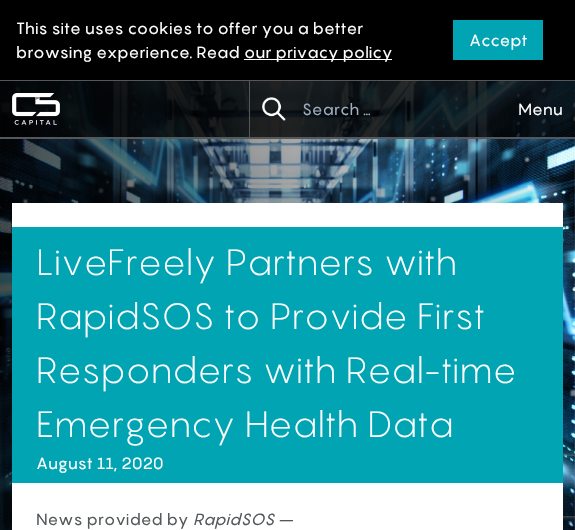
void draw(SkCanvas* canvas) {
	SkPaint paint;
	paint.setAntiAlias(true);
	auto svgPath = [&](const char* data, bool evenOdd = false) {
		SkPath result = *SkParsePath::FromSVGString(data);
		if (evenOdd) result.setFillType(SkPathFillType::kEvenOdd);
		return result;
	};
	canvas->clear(0xffffffff);
	canvas->drawImageRect(SkImages::DeferredFromEncodedData(SkData::MakeFromFileName("img1.png")), SkRect::MakeXYWH(0, 81, 575, 449), SkSamplingOptions());
	paint.setColor(0xff000000);
	canvas->drawRect(SkRect::MakeXYWH(0, 0, 575, 80), paint);
	paint.setColor(0xff54585a);
	canvas->drawRect(SkRect::MakeXYWH(0, 80, 575, 1), paint);
	SkFont f1(fontMgr->matchFamilyStyle("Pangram", SkFontStyle::Normal()), 16);
	f1.setSubpixel(true);
	paint.setColor(0xffffffff);
	canvas->drawString("This site uses cookies to offer you a better", 16, 34, f1, paint);
	canvas->drawString("browsing experience. Read", 16, 58, f1, paint);
	canvas->drawRect(SkRect::MakeXYWH(244, 59, 148, 1), paint);
	canvas->drawString("our privacy policy", 244, 58, f1, paint);
	paint.setColor(0xff00a4b2);
	canvas->drawRect(SkRect::MakeXYWH(453, 20, 90, 40), paint);
	paint.setColor(0xffffffff);
	canvas->drawString("Accept", 469, 46, f1, paint);
	canvas->save();
	canvas->clipPath(svgPath("M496 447H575V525H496ZM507 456H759C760 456 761 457 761 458V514C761 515 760 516 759 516H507C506 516 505 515 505 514V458C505 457 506 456 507 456Z", true), true);
	paint.setColor(0xff808080);
	paint.setMaskFilter(SkMaskFilter::MakeBlur(kNormal_SkBlurStyle, 2.5));
	canvas->drawRoundRect(SkRect::MakeXYWH(505, 456, 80, 60), 2, 2, paint);
	paint.setMaskFilter(nullptr);
	canvas->restore();
	{
		const SkColor colors[] = {0x00000000, 0xb3000000};
		const float stops[] = {0, 1};
		const SkPoint ends[] = {{575, 265}, {0, 265}};
		paint.setShader(SkGradientShader::MakeLinear(ends, colors, stops, 2, SkTileMode::kClamp));
		paint.setAlpha(255);
	}
	canvas->drawRect(SkRect::MakeXYWH(0, 81, 557, 449), paint);
	paint.setShader(nullptr);
	paint.setColor(0xcc000000);
	canvas->drawRect(SkRect::MakeXYWH(0, 81, 575, 56), paint);
	paint.setColor(0xff54585a);
	canvas->drawRect(SkRect::MakeXYWH(0, 137, 575, 2), paint);
	canvas->drawImageRect(SkImages::DeferredFromEncodedData(SkData::MakeFromFileName("img2.png")), SkRect::MakeXYWH(12, 93, 48, 32), SkSamplingOptions());
	canvas->drawRect(SkRect::MakeXYWH(249, 81, 1, 56), paint);
	canvas->drawImageRect(SkImages::DeferredFromEncodedData(SkData::MakeFromFileName("img3.png")), SkRect::MakeXYWH(262, 97, 24, 24), SkSamplingOptions());
	paint.setColor(0xffa0aec0);
	canvas->drawString("Search …", 302, 115, f1, paint);
	paint.setColor(0xffffffff);
	canvas->drawString("Menu", 518, 115, f1, paint);
	canvas->drawRect(SkRect::MakeXYWH(12, 203, 551, 327), paint);
	paint.setColor(0xff00a4b2);
	canvas->drawRect(SkRect::MakeXYWH(12, 227, 551, 256), paint);
	SkFont f2(fontMgr->matchFamilyStyle("Pangram", SkFontStyle(300, SkFontStyle::kNormal_Width, SkFontStyle::kUpright_Slant)), 36);
	f2.setSubpixel(true);
	paint.setColor(0xffffffff);
	canvas->drawString("LiveFreely Partners with", 36, 275, f2, paint);
	canvas->drawString("RapidSOS to Provide First", 36, 329, f2, paint);
	canvas->drawString("Responders with Real-time", 36, 383, f2, paint);
	canvas->drawString("Emergency Health Data", 36, 437, f2, paint);
	canvas->drawString("August 11, 2020", 36, 469, f1, paint);
	paint.setColor(0xff54585a);
	canvas->drawString("News provided by", 36, 525, f1, paint);
	SkFont f3(fontMgr->matchFamilyStyle("Pangram", SkFontStyle::Italic()), 16);
	f3.setSubpixel(true);
	canvas->drawString("RapidSOS –", 193, 525, f3, paint);
}
